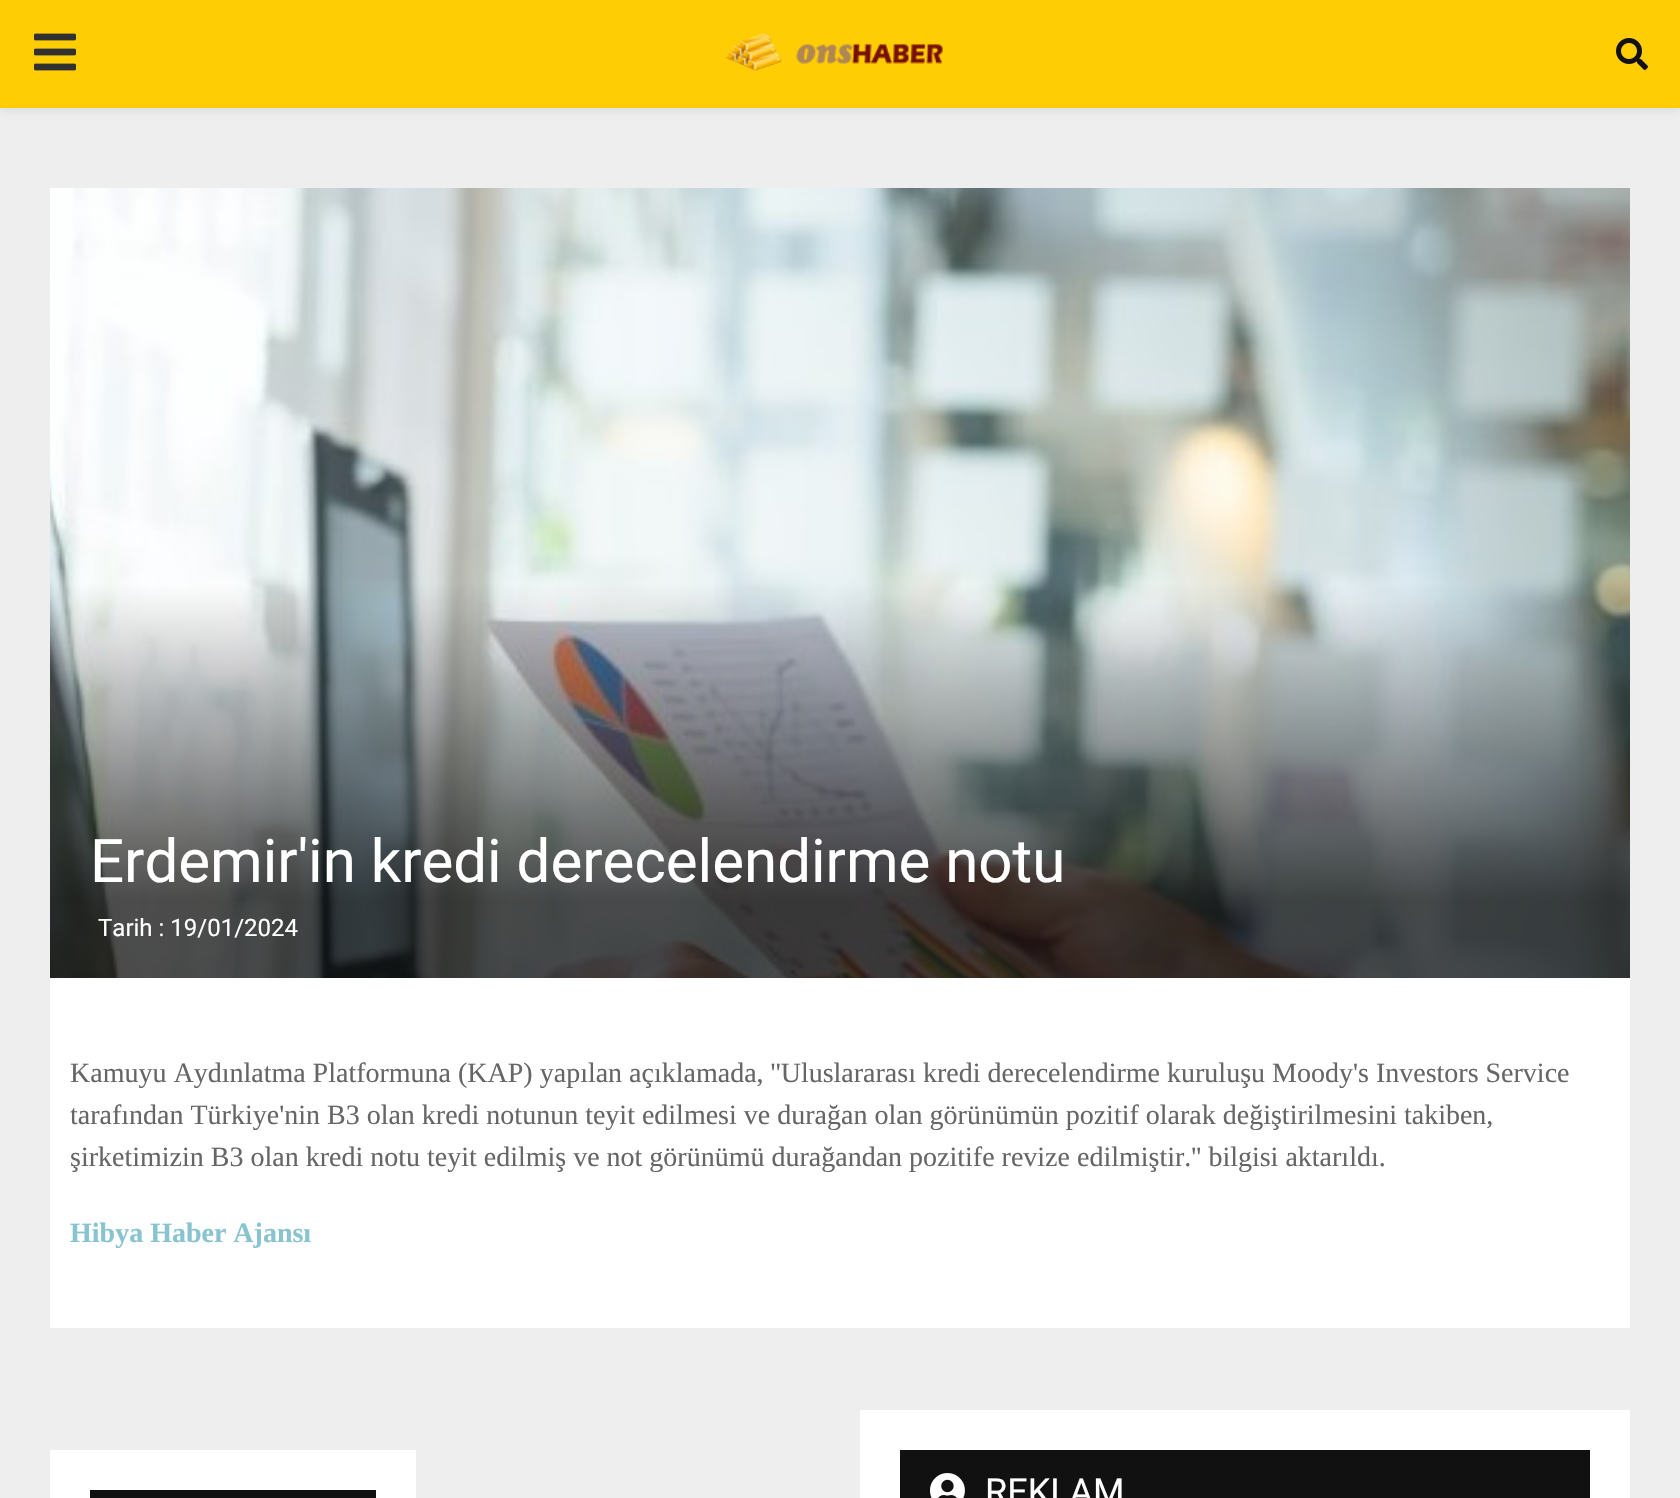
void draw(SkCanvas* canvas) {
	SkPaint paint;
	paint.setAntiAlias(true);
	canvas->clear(0xffeeeeee);
	paint.setColor(0x75bebebe);
	paint.setMaskFilter(SkMaskFilter::MakeBlur(kNormal_SkBlurStyle, 5));
	canvas->drawRect(SkRect::MakeXYWH(0, 2, 1680, 108), paint);
	paint.setMaskFilter(nullptr);
	paint.setColor(0xffffcd04);
	canvas->drawRect(SkRect::MakeXYWH(0, 0, 1680, 108), paint);
	canvas->drawImageRect(SkImages::DeferredFromEncodedData(SkData::MakeFromFileName("img1.png")), SkRect::MakeXYWH(34, 33, 42, 38), SkSamplingOptions());
	canvas->drawImageRect(SkImages::DeferredFromEncodedData(SkData::MakeFromFileName("img2.png")), SkRect::MakeXYWH(726, 33, 217, 38), SkSamplingOptions());
	canvas->drawImageRect(SkImages::DeferredFromEncodedData(SkData::MakeFromFileName("img3.png")), SkRect::MakeXYWH(1616, 38, 32, 32), SkSamplingOptions());
	canvas->drawImageRect(SkImages::DeferredFromEncodedData(SkData::MakeFromFileName("img4.png")), SkRect::MakeXYWH(50, 188, 1580, 790), SkSamplingOptions());
	SkFont f1(fontMgr->matchFamilyStyle("Roboto", SkFontStyle::Normal()), 60);
	f1.setSubpixel(true);
	paint.setColor(0xffffffff);
	canvas->drawString("Erdemir'in kredi derecelendirme notu", 90, 882, f1, paint);
	SkFont f2(fontMgr->matchFamilyStyle("Roboto", SkFontStyle::Normal()), 24);
	f2.setSubpixel(true);
	canvas->drawString("Tarih : 19/01/2024", 98, 936, f2, paint);
	canvas->drawRect(SkRect::MakeXYWH(50, 978, 1580, 350), paint);
	SkFont f3(fontMgr->matchFamilyStyle("Liberation Serif", SkFontStyle::Normal()), 28);
	f3.setSubpixel(true);
	paint.setColor(0xff666666);
	canvas->drawString("Kamuyu Aydınlatma Platformuna (KAP) yapılan açıklamada, ''Uluslararası kredi derecelendirme kuruluşu Moody's Investors Service", 70, 1082, f3, paint);
	canvas->drawString("tarafından Türkiye'nin B3 olan kredi notunun teyit edilmesi ve durağan olan görünümün pozitif olarak değiştirilmesini takiben,", 70, 1124, f3, paint);
	canvas->drawString("şirketimizin B3 olan kredi notu teyit edilmiş ve not görünümü durağandan pozitife revize edilmiştir.'' bilgisi aktarıldı.", 70, 1166, f3, paint);
	SkFont f4(fontMgr->matchFamilyStyle("Liberation Serif", SkFontStyle::Bold()), 28);
	f4.setSubpixel(true);
	paint.setColor(0xff88c4cf);
	canvas->drawString("Hibya Haber Ajansı", 70, 1242, f4, paint);
	paint.setColor(0xffffffff);
	canvas->drawRect(SkRect::MakeXYWH(50, 1450, 366, 48), paint);
	paint.setColor(0xff111111);
	canvas->drawRect(SkRect::MakeXYWH(90, 1490, 286, 8), paint);
	paint.setColor(0xffffffff);
	canvas->drawRect(SkRect::MakeXYWH(860, 1410, 770, 88), paint);
	paint.setColor(0xff111111);
	canvas->drawRect(SkRect::MakeXYWH(900, 1450, 690, 48), paint);
	canvas->drawImageRect(SkImages::DeferredFromEncodedData(SkData::MakeFromFileName("img5.png")), SkRect::MakeXYWH(930, 1473, 35, 25), SkSamplingOptions());
	SkFont f5(fontMgr->matchFamilyStyle("Roboto", SkFontStyle::Normal()), 36);
	f5.setSubpixel(true);
	paint.setColor(0xffffffff);
	canvas->drawString("REKLAM", 985, 1504, f5, paint);
}
